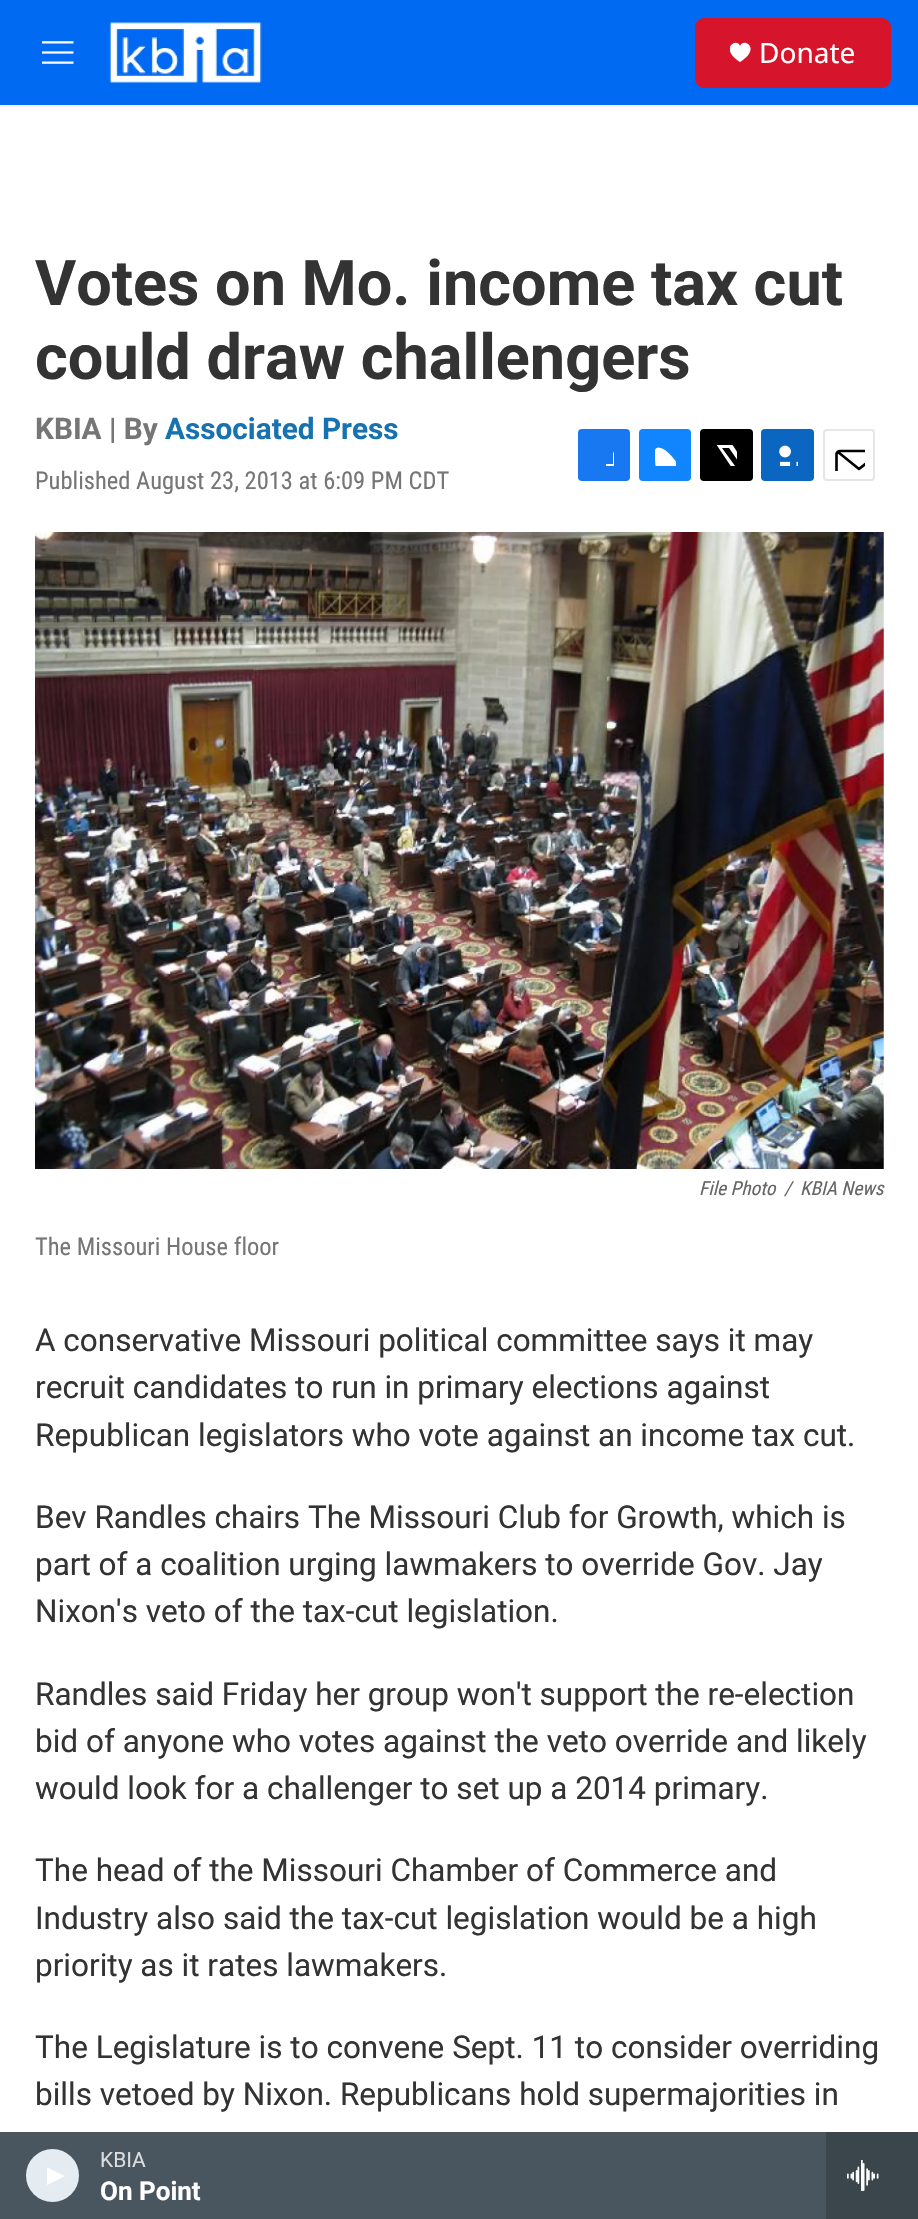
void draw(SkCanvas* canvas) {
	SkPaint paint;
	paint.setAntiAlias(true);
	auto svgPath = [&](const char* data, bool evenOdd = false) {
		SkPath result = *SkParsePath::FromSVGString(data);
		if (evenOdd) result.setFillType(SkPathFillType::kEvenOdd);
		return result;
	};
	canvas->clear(0xffffffff);
	paint.setColor(0xff006af3);
	canvas->drawRect(SkRect::MakeXYWH(0, 0, 918, 105), paint);
	paint.setColor(0xfff5f5f5);
	canvas->drawRect(SkRect::MakeXYWH(0, 105, 918, 2), paint);
	canvas->drawImageRect(SkImages::DeferredFromEncodedData(SkData::MakeFromFileName("img1.png")), SkRect::MakeXYWH(42, 41, 32, 23), SkSamplingOptions());
	canvas->drawImageRect(SkImages::DeferredFromEncodedData(SkData::MakeFromFileName("img2.png")), SkRect::MakeXYWH(109, 21, 156, 63), SkSamplingOptions());
	paint.setColor(0xffd6152c);
	canvas->drawRoundRect(SkRect::MakeXYWH(695, 18, 196, 70), 9, 9, paint);
	canvas->save();
	canvas->clipRect(SkRect::MakeXYWH(730, 42, 21, 21));
	paint.setColor(0xffffffff);
	canvas->drawPath(svgPath("M740 46C737 37 718.5 48.5 740 62C762 48.5 743.5 37 740 46Z"), paint);
	canvas->restore();
	SkFont f1(fontMgr->matchFamilyStyle("Noto Sans", SkFontStyle::Normal()), 28);
	f1.setSubpixel(true);
	canvas->drawString("Donate", 759, 63, f1, paint);
	paint.setColor(0xff4a565f);
	canvas->drawRect(SkRect::MakeXYWH(0, 2132, 826, 87), paint);
	paint.setColor(0xffe4ecf2);
	canvas->drawCircle(52.5, 2175.5, 26.5, paint);
	paint.setColor(0xffffffff);
	canvas->drawPath(svgPath("M47 2167.5L65 2176L47 2185Z"), paint);
	SkFont f2(fontMgr->matchFamilyStyle("Roboto", SkFontStyle::Normal()), 21);
	f2.setSubpixel(true);
	paint.setColor(0xffdbdddf);
	canvas->drawString("KBIA", 100, 2167, f2, paint);
	SkFont f3(fontMgr->matchFamilyStyle("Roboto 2", SkFontStyle::Bold()), 26);
	f3.setSubpixel(true);
	paint.setColor(0xffffffff);
	canvas->drawString("On Point", 100, 2200, f3, paint);
	paint.setColor(0xff3b454c);
	canvas->drawRect(SkRect::MakeXYWH(826, 2132, 92, 87), paint);
	canvas->drawImageRect(SkImages::DeferredFromEncodedData(SkData::MakeFromFileName("img3.png")), SkRect::MakeXYWH(847, 2160, 32, 31), SkSamplingOptions());
	SkFont f4(fontMgr->matchFamilyStyle("Roboto", SkFontStyle::Bold()), 63);
	f4.setSubpixel(true);
	paint.setColor(0xff333333);
	canvas->drawString("Votes on Mo. income tax cut", 35, 305, f4, paint);
	canvas->drawString("could draw challengers", 35, 379, f4, paint);
	SkFont f5(fontMgr->matchFamilyStyle("Roboto", SkFontStyle::Bold()), 29.75);
	f5.setSubpixel(true);
	paint.setColor(0xff767676);
	canvas->drawString("KBIA | By", 35, 439, f5, paint);
	paint.setColor(0xff1772b0);
	canvas->drawString("Associated Press", 165, 439, f5, paint);
	SkFont f6(fontMgr->matchFamilyStyle("Roboto Condensed", SkFontStyle::Normal()), 24.5);
	f6.setSubpixel(true);
	paint.setColor(0xff767676);
	canvas->drawString("Published August 23, 2013 at 6:09 PM CDT", 35, 489, f6, paint);
	paint.setColor(0xff1778f2);
	canvas->drawRoundRect(SkRect::MakeXYWH(578, 429, 52, 52), 4, 4, paint);
	canvas->save();
	canvas->clipRect(SkRect::MakeXYWH(593, 445, 21, 21));
	paint.setColor(0xffffffff);
	canvas->drawPath(svgPath("M622 481H613V473H606V464H613V454C615 445.5 623 444 630 445.5V453C620 453 622 456 622 464H630V468.5L629 473H622Z"), paint);
	canvas->restore();
	paint.setColor(0xff1185fe);
	canvas->drawRoundRect(SkRect::MakeXYWH(639, 429, 52, 52), 4, 4, paint);
	canvas->drawImageRect(SkImages::DeferredFromEncodedData(SkData::MakeFromFileName("img4.png")), SkRect::MakeXYWH(655, 447, 21, 19), SkSamplingOptions());
	paint.setColor(0xff000000);
	canvas->drawRoundRect(SkRect::MakeXYWH(700, 429, 53, 52), 4, 4, paint);
	canvas->save();
	canvas->clipRect(SkRect::MakeXYWH(716, 445, 21, 21));
	paint.setColor(0xffffffff);
	canvas->drawPath(svgPath("M747 467L753 475.5C753 477.5 753 479 751.5 480L729 448H722L746 481H741L738 477L734.5 481H730L736 474L716 444H732L745 464L753 454V459.5Z"), paint);
	canvas->restore();
	paint.setColor(0xff0a66c1);
	canvas->drawRoundRect(SkRect::MakeXYWH(761, 429, 53, 52), 4, 4, paint);
	canvas->drawImageRect(SkImages::DeferredFromEncodedData(SkData::MakeFromFileName("img5.png")), SkRect::MakeXYWH(779, 445, 19, 21), SkSamplingOptions());
	paint.setStroke(true);
	paint.setStrokeWidth(2);
	paint.setColor(0xffe6e6e6);
	canvas->drawRoundRect(SkRect::MakeXYWH(824, 430, 50, 50), 3, 3, paint);
	canvas->save();
	canvas->clipRect(SkRect::MakeXYWH(833, 439, 32, 32));
	paint.setStrokeWidth(2.6);
	paint.setStrokeCap(SkPaint::kRound_Cap);
	paint.setStrokeJoin(SkPaint::kRound_Join);
	paint.setColor(0xff000000);
	canvas->drawPath(svgPath("M882 477.5C882 479.5 880.5 481 878.5 481H840C838 481 836.5 479.5 836.5 477.5V454C836.5 452.5 838 451 840 451H878.5C880.5 451 882 452.5 882 454ZM880.5 452L859 469L838 452"), paint);
	canvas->restore();
	canvas->drawImageRect(SkImages::DeferredFromEncodedData(SkData::MakeFromFileName("img6.png")), SkRect::MakeXYWH(35, 532, 849, 637), SkSamplingOptions());
	SkFont f7(fontMgr->matchFamilyStyle("Roboto Condensed", SkFontStyle::Italic()), 19.25);
	f7.setSubpixel(true);
	paint.setStroke(false);
	paint.setColor(0xff666666);
	canvas->drawString("File Photo", 699, 1195, f7, paint);
	canvas->drawString("/", 784, 1195, f7, paint);
	canvas->drawString("KBIA News", 800, 1195, f7, paint);
	paint.setColor(0xff767676);
	canvas->drawString("The Missouri House floor", 35, 1255, f6, paint);
	SkFont f8(fontMgr->matchFamilyStyle("Roboto", SkFontStyle::Normal()), 31.5);
	f8.setSubpixel(true);
	paint.setColor(0xff333333);
	canvas->drawString("A conservative Missouri political committee says it may", 35, 1351, f8, paint);
	canvas->drawString("recruit candidates to run in primary elections against", 35, 1398, f8, paint);
	canvas->drawString("Republican legislators who vote against an income tax cut.", 35, 1446, f8, paint);
	canvas->drawString("Bev Randles chairs The Missouri Club for Growth, which is", 35, 1528, f8, paint);
	canvas->drawString("part of a coalition urging lawmakers to override Gov. Jay", 35, 1575, f8, paint);
	canvas->drawString("Nixon's veto of the tax-cut legislation.", 35, 1622, f8, paint);
	canvas->drawString("Randles said Friday her group won't support the re-election", 35, 1705, f8, paint);
	canvas->drawString("bid of anyone who votes against the veto override and likely", 35, 1752, f8, paint);
	canvas->drawString("would look for a challenger to set up a 2014 primary.", 35, 1799, f8, paint);
	canvas->drawString("The head of the Missouri Chamber of Commerce and", 35, 1881, f8, paint);
	canvas->drawString("Industry also said the tax-cut legislation would be a high", 35, 1929, f8, paint);
	canvas->drawString("priority as it rates lawmakers.", 35, 1976, f8, paint);
	canvas->drawString("The Legislature is to convene Sept. 11 to consider overriding", 35, 2058, f8, paint);
	canvas->drawString("bills vetoed by Nixon. Republicans hold supermajorities in", 35, 2105, f8, paint);
}
